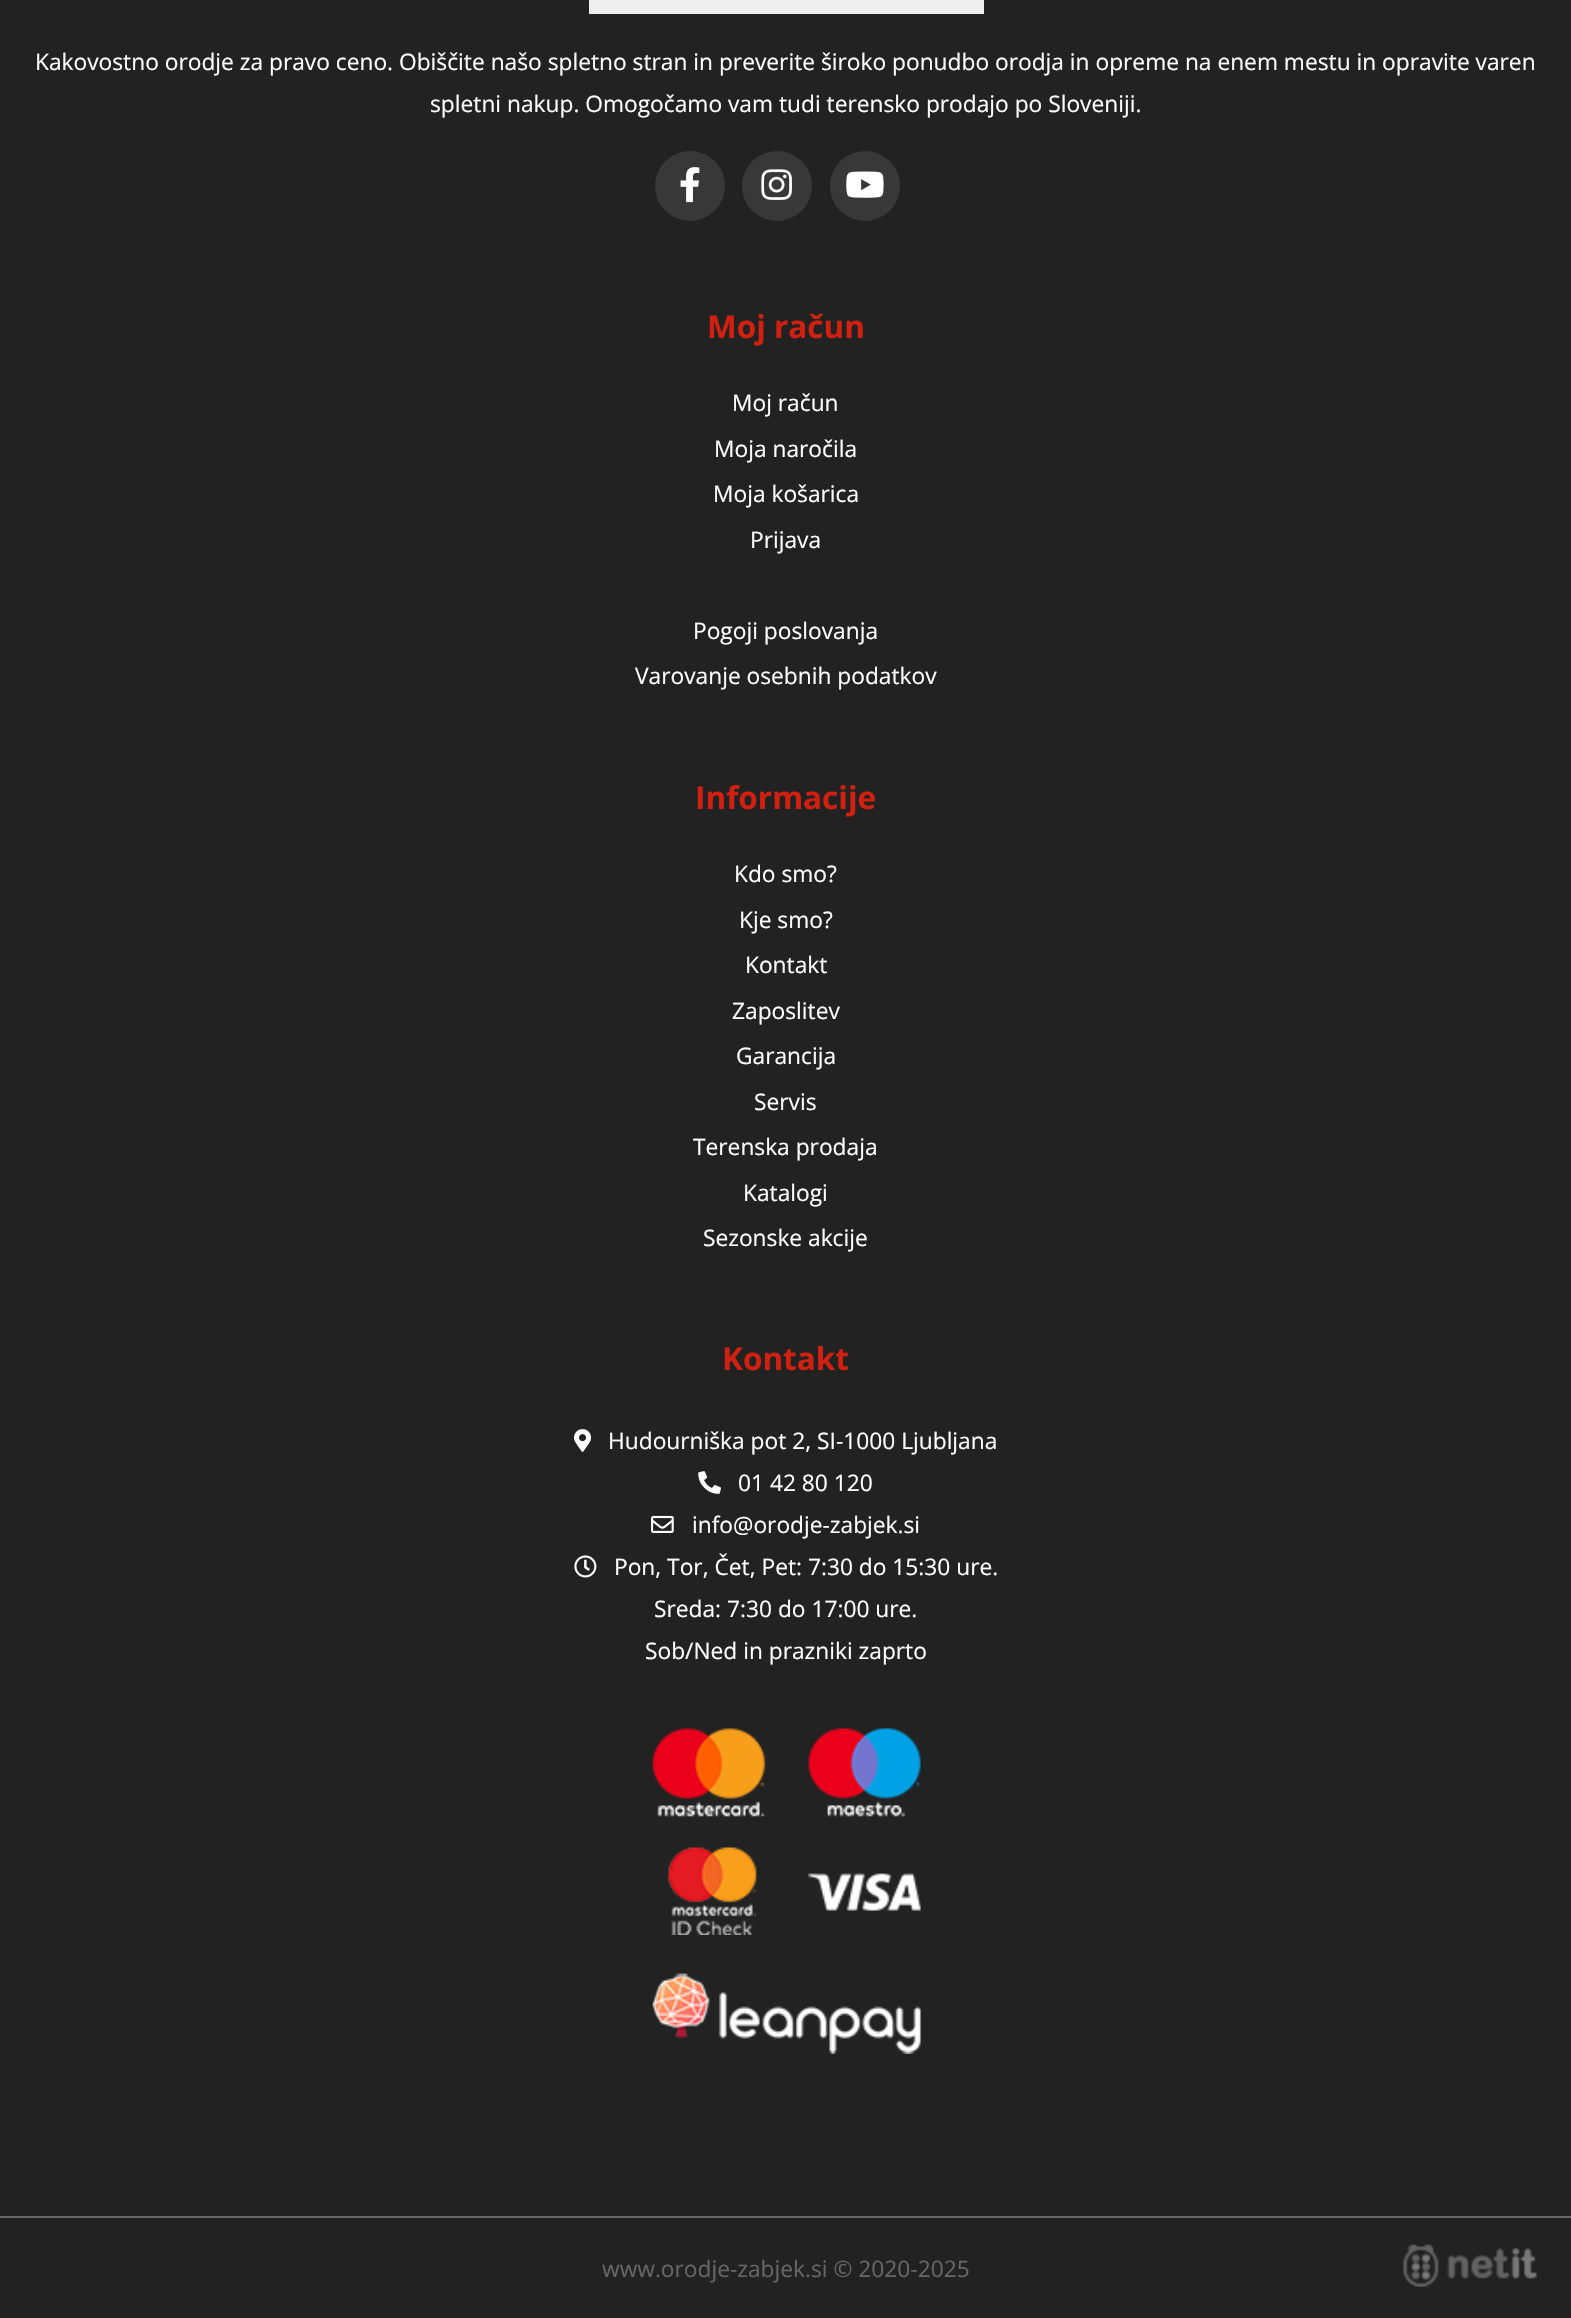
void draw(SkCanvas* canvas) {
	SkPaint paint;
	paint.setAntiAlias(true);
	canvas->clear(0xff222222);
	paint.setColor(0xffeeeeee);
	canvas->drawRect(SkRect::MakeXYWH(589, 0, 395, 14), paint);
	SkFont f1(fontMgr->matchFamilyStyle("Open Sans", SkFontStyle::Normal()), 22.75);
	f1.setSubpixel(true);
	paint.setColor(0xffffffff);
	canvas->drawString("Kakovostno orodje za pravo ceno. Obiščite našo spletno stran in preverite široko ponudbo orodja in opreme na enem mestu in opravite varen", 35, 70, f1, paint);
	canvas->drawString("spletni nakup. Omogočamo vam tudi terensko prodajo po Sloveniji.", 430, 112, f1, paint);
	paint.setColor(0xff383838);
	canvas->drawCircle(690, 186, 35, paint);
	canvas->drawImageRect(SkImages::DeferredFromEncodedData(SkData::MakeFromFileName("img1.png")), SkRect::MakeXYWH(680, 167, 20, 36), SkSamplingOptions());
	canvas->drawCircle(777, 186, 35, paint);
	canvas->drawImageRect(SkImages::DeferredFromEncodedData(SkData::MakeFromFileName("img2.png")), SkRect::MakeXYWH(761, 169, 31, 31), SkSamplingOptions());
	canvas->drawCircle(865, 186, 35, paint);
	canvas->drawImageRect(SkImages::DeferredFromEncodedData(SkData::MakeFromFileName("img3.png")), SkRect::MakeXYWH(846, 171, 38, 27), SkSamplingOptions());
	SkFont f2(fontMgr->matchFamilyStyle("Open Sans", SkFontStyle::Bold()), 31.5);
	f2.setSubpixel(true);
	paint.setColor(0xffd12010);
	canvas->drawString("Moj račun", 707, 338, f2, paint);
	paint.setColor(0xffffffff);
	canvas->drawString("Moj račun", 732, 411, f1, paint);
	canvas->drawString("Moja naročila", 714, 457, f1, paint);
	canvas->drawString("Moja košarica", 713, 502, f1, paint);
	canvas->drawString("Prijava", 750, 548, f1, paint);
	canvas->drawString("Pogoji poslovanja", 693, 639, f1, paint);
	canvas->drawString("Varovanje osebnih podatkov", 635, 684, f1, paint);
	paint.setColor(0xffd12010);
	canvas->drawString("Informacije", 695, 809, f2, paint);
	paint.setColor(0xffffffff);
	canvas->drawString("Kdo smo?", 734, 882, f1, paint);
	canvas->drawString("Kje smo?", 739, 928, f1, paint);
	canvas->drawString("Kontakt", 745, 973, f1, paint);
	canvas->drawString("Zaposlitev", 732, 1019, f1, paint);
	canvas->drawString("Garancija", 736, 1064, f1, paint);
	canvas->drawString("Servis", 754, 1110, f1, paint);
	canvas->drawString("Terenska prodaja", 693, 1155, f1, paint);
	canvas->drawString("Katalogi", 743, 1201, f1, paint);
	canvas->drawString("Sezonske akcije", 703, 1246, f1, paint);
	paint.setColor(0xffd12010);
	canvas->drawString("Kontakt", 722, 1370, f2, paint);
	canvas->drawImageRect(SkImages::DeferredFromEncodedData(SkData::MakeFromFileName("img4.png")), SkRect::MakeXYWH(574, 1429, 18, 23), SkSamplingOptions());
	paint.setColor(0xffffffff);
	canvas->drawString("Hudourniška pot 2, SI-1000 Ljubljana", 608, 1449, f1, paint);
	canvas->drawImageRect(SkImages::DeferredFromEncodedData(SkData::MakeFromFileName("img5.png")), SkRect::MakeXYWH(698, 1471, 23, 23), SkSamplingOptions());
	canvas->drawString("01 42 80 120", 738, 1491, f1, paint);
	canvas->drawImageRect(SkImages::DeferredFromEncodedData(SkData::MakeFromFileName("img6.png")), SkRect::MakeXYWH(651, 1515, 23, 18), SkSamplingOptions());
	canvas->drawString("info@orodje-zabjek.si", 692, 1533, f1, paint);
	canvas->drawImageRect(SkImages::DeferredFromEncodedData(SkData::MakeFromFileName("img7.png")), SkRect::MakeXYWH(574, 1555, 23, 23), SkSamplingOptions());
	canvas->drawString("Pon, Tor, Čet, Pet: 7:30 do 15:30 ure.", 614, 1575, f1, paint);
	canvas->drawString("Sreda: 7:30 do 17:00 ure.", 654, 1617, f1, paint);
	canvas->drawString("Sob/Ned in prazniki zaprto", 645, 1659, f1, paint);
	canvas->drawImageRect(SkImages::DeferredFromEncodedData(SkData::MakeFromFileName("img8.png")), SkRect::MakeXYWH(652, 1728, 269, 207), SkSamplingOptions());
	canvas->drawImageRect(SkImages::DeferredFromEncodedData(SkData::MakeFromFileName("img9.png")), SkRect::MakeXYWH(652, 1973, 269, 81), SkSamplingOptions());
	paint.setColor(0xff666666);
	canvas->drawRect(SkRect::MakeXYWH(0, 2216, 1571, 2), paint);
	canvas->drawString("www.orodje-zabjek.si © 2020-2025", 602, 2277, f1, paint);
	canvas->drawImageRect(SkImages::DeferredFromEncodedData(SkData::MakeFromFileName("img10.png")), SkRect::MakeXYWH(1403, 2244, 134, 43), SkSamplingOptions());
}
